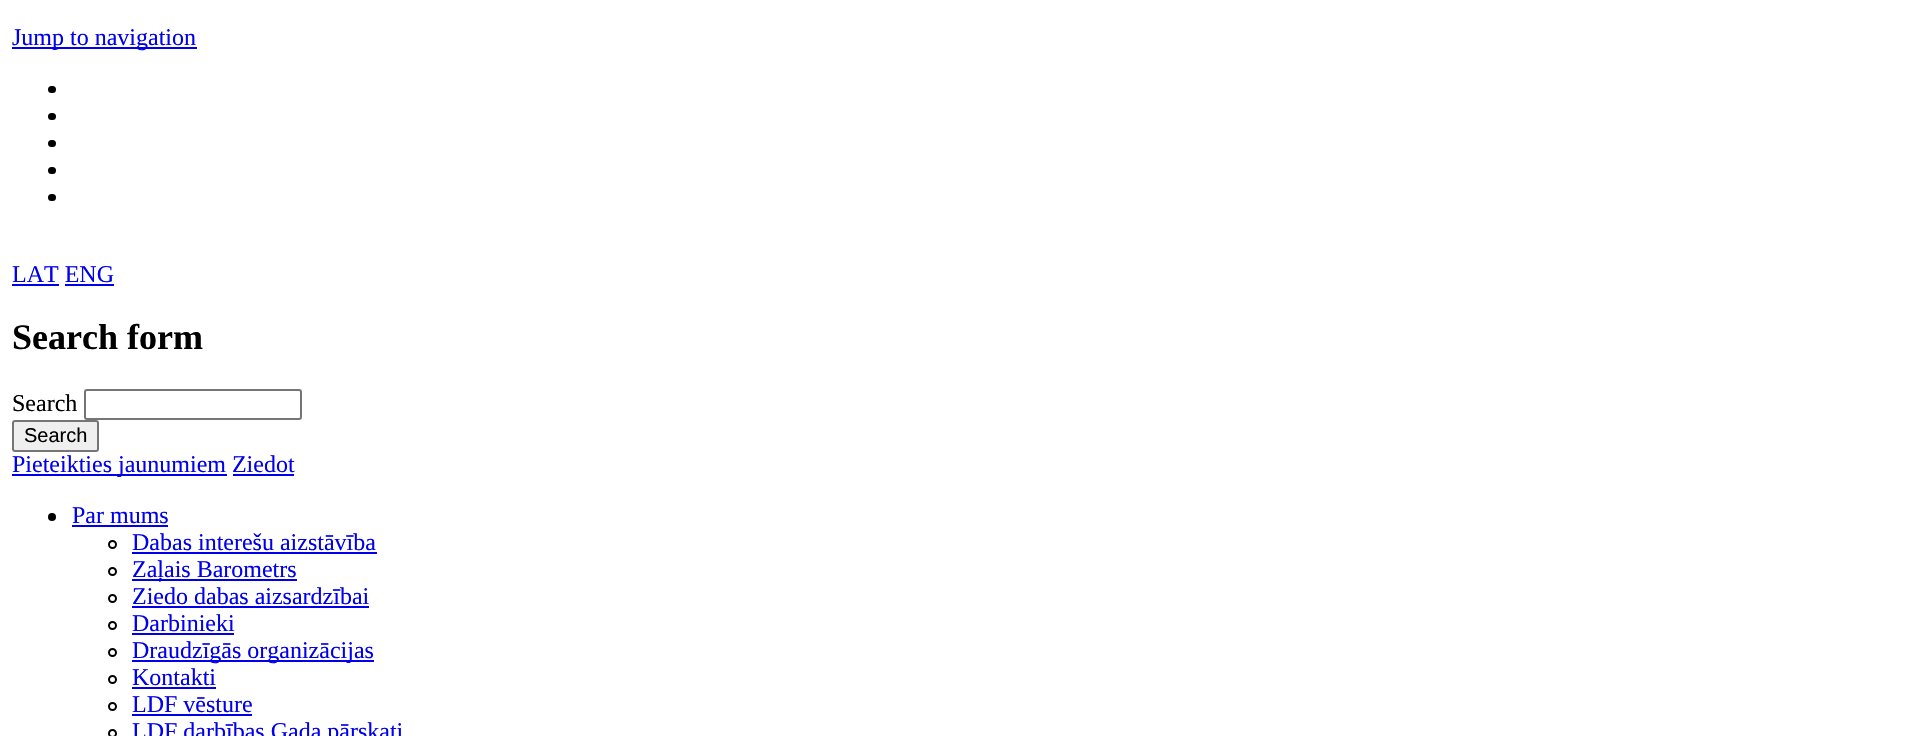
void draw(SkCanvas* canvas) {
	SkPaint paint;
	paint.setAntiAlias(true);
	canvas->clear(0xffffffff);
	paint.setColor(0xff0000ee);
	canvas->drawRect(SkRect::MakeXYWH(12, 47, 185, 2), paint);
	SkFont f1(fontMgr->matchFamilyStyle("Liberation Serif", SkFontStyle::Normal()), 24);
	f1.setSubpixel(true);
	canvas->drawString("Jump to navigation", 12, 45, f1, paint);
	paint.setColor(0xff000000);
	canvas->drawRoundRect(SkRect::MakeXYWH(48, 86, 8, 7), 3.5, 3.5, paint);
	canvas->drawRoundRect(SkRect::MakeXYWH(48, 113, 8, 7), 3.5, 3.5, paint);
	canvas->drawRoundRect(SkRect::MakeXYWH(48, 140, 8, 7), 3.5, 3.5, paint);
	canvas->drawRoundRect(SkRect::MakeXYWH(48, 167, 8, 7), 3.5, 3.5, paint);
	canvas->drawRoundRect(SkRect::MakeXYWH(48, 194, 8, 7), 3.5, 3.5, paint);
	paint.setColor(0xff0000ee);
	canvas->drawString("LAT ENG", 12, 282, f1, paint);
	canvas->drawRect(SkRect::MakeXYWH(12, 284, 47, 2), paint);
	canvas->drawRect(SkRect::MakeXYWH(65, 284, 49, 2), paint);
	SkFont f2(fontMgr->matchFamilyStyle("Liberation Serif", SkFontStyle::Bold()), 36);
	f2.setSubpixel(true);
	paint.setColor(0xff000000);
	canvas->drawString("Search form", 12, 349, f2, paint);
	canvas->drawString("Search", 12, 411, f1, paint);
	paint.setStroke(true);
	paint.setStrokeWidth(2);
	paint.setColor(0xff767676);
	canvas->drawRoundRect(SkRect::MakeXYWH(85, 390, 216, 29), 2, 2, paint);
	paint.setStroke(false);
	paint.setColor(0xffefefef);
	canvas->drawRoundRect(SkRect::MakeXYWH(13, 421, 85, 30), 2, 2, paint);
	paint.setStroke(true);
	paint.setColor(0xff767676);
	canvas->drawRoundRect(SkRect::MakeXYWH(13, 421, 85, 30), 2, 2, paint);
	SkFont f3(fontMgr->matchFamilyStyle("Liberation Sans", SkFontStyle::Normal()), 20);
	f3.setSubpixel(true);
	paint.setStroke(false);
	paint.setColor(0xff000000);
	canvas->drawString("Search", 24, 442, f3, paint);
	paint.setColor(0xff0000ee);
	canvas->drawRect(SkRect::MakeXYWH(12, 474, 215, 2), paint);
	canvas->drawString("Pieteikties jaunumiem Ziedot", 12, 472, f1, paint);
	canvas->drawRect(SkRect::MakeXYWH(233, 474, 61, 2), paint);
	paint.setColor(0xff000000);
	canvas->drawCircle(52, 517, 4, paint);
	paint.setColor(0xff0000ee);
	canvas->drawString("Par mums", 72, 523, f1, paint);
	canvas->drawRect(SkRect::MakeXYWH(72, 525, 96, 2), paint);
	paint.setStroke(true);
	paint.setColor(0xff000000);
	canvas->drawCircle(112.5, 544.5, 3.5, paint);
	paint.setStroke(false);
	paint.setColor(0xff0000ee);
	canvas->drawString("Dabas interešu aizstāvība", 132, 550, f1, paint);
	canvas->drawRect(SkRect::MakeXYWH(132, 552, 245, 2), paint);
	paint.setStroke(true);
	paint.setColor(0xff000000);
	canvas->drawCircle(112.5, 571.5, 3.5, paint);
	paint.setStroke(false);
	paint.setColor(0xff0000ee);
	canvas->drawRect(SkRect::MakeXYWH(132, 579, 165, 2), paint);
	canvas->drawString("Zaļais Barometrs", 132, 577, f1, paint);
	paint.setStroke(true);
	paint.setColor(0xff000000);
	canvas->drawCircle(112.5, 598.5, 3.5, paint);
	paint.setStroke(false);
	paint.setColor(0xff0000ee);
	canvas->drawString("Ziedo dabas aizsardzībai", 132, 604, f1, paint);
	canvas->drawRect(SkRect::MakeXYWH(132, 606, 237, 2), paint);
	paint.setStroke(true);
	paint.setColor(0xff000000);
	canvas->drawCircle(112.5, 625.5, 3.5, paint);
	paint.setStroke(false);
	paint.setColor(0xff0000ee);
	canvas->drawString("Darbinieki", 132, 631, f1, paint);
	canvas->drawRect(SkRect::MakeXYWH(132, 633, 102, 2), paint);
	paint.setStroke(true);
	paint.setColor(0xff000000);
	canvas->drawCircle(112.5, 652.5, 3.5, paint);
	paint.setStroke(false);
	paint.setColor(0xff0000ee);
	canvas->drawRect(SkRect::MakeXYWH(132, 660, 242, 2), paint);
	canvas->drawString("Draudzīgās organizācijas", 132, 658, f1, paint);
	paint.setStroke(true);
	paint.setColor(0xff000000);
	canvas->drawCircle(112.5, 679.5, 3.5, paint);
	paint.setStroke(false);
	paint.setColor(0xff0000ee);
	canvas->drawString("Kontakti", 132, 685, f1, paint);
	canvas->drawRect(SkRect::MakeXYWH(132, 687, 84, 2), paint);
	paint.setStroke(true);
	paint.setColor(0xff000000);
	canvas->drawCircle(112.5, 706.5, 3.5, paint);
	paint.setStroke(false);
	paint.setColor(0xff0000ee);
	canvas->drawString("LDF vēsture", 132, 712, f1, paint);
	canvas->drawRect(SkRect::MakeXYWH(132, 714, 120, 2), paint);
	paint.setStroke(true);
	paint.setColor(0xff000000);
	canvas->drawCircle(112.5, 733.5, 3.5, paint);
	paint.setStroke(false);
	paint.setColor(0xff0000ee);
	canvas->drawString("LDF darbības Gada pārskati", 132, 739, f1, paint);
}
